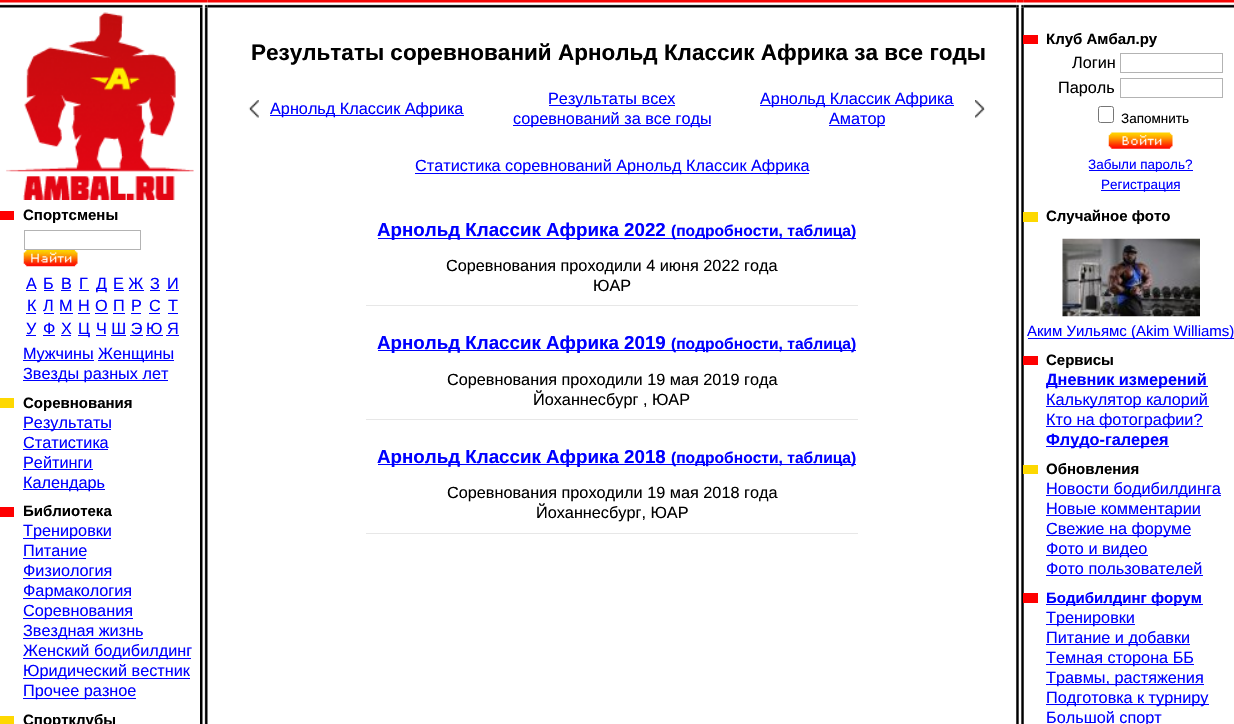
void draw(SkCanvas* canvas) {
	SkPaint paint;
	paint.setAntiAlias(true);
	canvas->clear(0xffffffff);
	canvas->drawImageRect(SkImages::DeferredFromEncodedData(SkData::MakeFromFileName("img1.png")), SkRect::MakeXYWH(0, 0, 200, 8), SkSamplingOptions());
	canvas->drawImageRect(SkImages::DeferredFromEncodedData(SkData::MakeFromFileName("img3.png")), SkRect::MakeXYWH(207, 0, 810, 8), SkSamplingOptions());
	canvas->drawImageRect(SkImages::DeferredFromEncodedData(SkData::MakeFromFileName("img8.png")), SkRect::MakeXYWH(200, 7, 8, 717), SkSamplingOptions());
	canvas->drawImageRect(SkImages::DeferredFromEncodedData(SkData::MakeFromFileName("img2.png")), SkRect::MakeXYWH(200, 0, 8, 8), SkSamplingOptions());
	canvas->drawImageRect(SkImages::DeferredFromEncodedData(SkData::MakeFromFileName("img5.png")), SkRect::MakeXYWH(1023, 0, 211, 8), SkSamplingOptions());
	canvas->drawImageRect(SkImages::DeferredFromEncodedData(SkData::MakeFromFileName("img11.png")), SkRect::MakeXYWH(1016, 7, 8, 717), SkSamplingOptions());
	canvas->drawImageRect(SkImages::DeferredFromEncodedData(SkData::MakeFromFileName("img4.png")), SkRect::MakeXYWH(1016, 0, 8, 8), SkSamplingOptions());
	canvas->drawImageRect(SkImages::DeferredFromEncodedData(SkData::MakeFromFileName("img6.png")), SkRect::MakeXYWH(6, 12, 188, 188), SkSamplingOptions());
	paint.setColor(0xfffe0001);
	canvas->drawRect(SkRect::MakeXYWH(0, 211, 14, 9), paint);
	SkFont f1(fontMgr->matchFamilyStyle("Liberation Sans", SkFontStyle::Bold()), 15);
	f1.setSubpixel(true);
	paint.setColor(0xff000000);
	canvas->drawString("Спортсмены", 23, 220, f1, paint);
	paint.setStroke(true);
	paint.setStrokeWidth(1);
	paint.setColor(0xffb3b3b3);
	canvas->drawRect(SkRect::MakeXYWH(24.5, 230.5, 116, 19), paint);
	canvas->drawImageRect(SkImages::DeferredFromEncodedData(SkData::MakeFromFileName("img7.png")), SkRect::MakeXYWH(23, 250, 55, 17), SkSamplingOptions());
	SkFont f2(fontMgr->matchFamilyStyle("Liberation Sans", SkFontStyle::Normal()), 16.25);
	f2.setSubpixel(true);
	paint.setStroke(false);
	paint.setColor(0xff0000ff);
	canvas->drawString("А", 26, 289, f2, paint);
	canvas->drawRect(SkRect::MakeXYWH(26, 290, 10, 1), paint);
	canvas->drawString("Б", 43, 289, f2, paint);
	canvas->drawRect(SkRect::MakeXYWH(44, 290, 10, 1), paint);
	canvas->drawString("В", 61, 289, f2, paint);
	canvas->drawRect(SkRect::MakeXYWH(61, 290, 10, 1), paint);
	canvas->drawString("Г", 79, 289, f2, paint);
	canvas->drawRect(SkRect::MakeXYWH(79, 290, 10, 1), paint);
	canvas->drawRect(SkRect::MakeXYWH(96, 290, 10, 1), paint);
	canvas->drawString("Д", 96, 289, f2, paint);
	canvas->drawString("Е Ж", 113, 289, f2, paint);
	canvas->drawRect(SkRect::MakeXYWH(114, 290, 10, 1), paint);
	canvas->drawString("З", 150, 289, f2, paint);
	canvas->drawRect(SkRect::MakeXYWH(150, 290, 10, 1), paint);
	canvas->drawString("И", 167, 289, f2, paint);
	canvas->drawRect(SkRect::MakeXYWH(166, 290, 13, 1), paint);
	canvas->drawRect(SkRect::MakeXYWH(129, 290, 15, 1), paint);
	canvas->drawString("К", 27, 311, f2, paint);
	canvas->drawRect(SkRect::MakeXYWH(26, 313, 10, 1), paint);
	canvas->drawString("Л", 43, 311, f2, paint);
	canvas->drawRect(SkRect::MakeXYWH(44, 313, 10, 1), paint);
	canvas->drawString("М", 59, 311, f2, paint);
	canvas->drawRect(SkRect::MakeXYWH(60, 313, 13, 1), paint);
	canvas->drawString("Н", 78, 311, f2, paint);
	canvas->drawRect(SkRect::MakeXYWH(78, 313, 12, 1), paint);
	canvas->drawString("О", 95, 311, f2, paint);
	canvas->drawRect(SkRect::MakeXYWH(95, 313, 13, 1), paint);
	canvas->drawString("П", 113, 311, f2, paint);
	canvas->drawRect(SkRect::MakeXYWH(113, 313, 12, 1), paint);
	canvas->drawString("Р", 131, 311, f2, paint);
	canvas->drawRect(SkRect::MakeXYWH(131, 313, 10, 1), paint);
	canvas->drawString("С", 149, 311, f2, paint);
	canvas->drawRect(SkRect::MakeXYWH(149, 313, 11, 1), paint);
	canvas->drawString("Т", 168, 311, f2, paint);
	canvas->drawRect(SkRect::MakeXYWH(168, 313, 10, 1), paint);
	canvas->drawString("У", 26, 334, f2, paint);
	canvas->drawRect(SkRect::MakeXYWH(26, 335, 10, 1), paint);
	canvas->drawString("Ф", 43, 334, f2, paint);
	canvas->drawRect(SkRect::MakeXYWH(43, 335, 12, 1), paint);
	canvas->drawString("Х", 61, 334, f2, paint);
	canvas->drawRect(SkRect::MakeXYWH(61, 335, 10, 1), paint);
	canvas->drawRect(SkRect::MakeXYWH(78, 335, 12, 1), paint);
	canvas->drawString("Ц", 78, 334, f2, paint);
	canvas->drawString("Ч Ш Э", 96, 334, f2, paint);
	canvas->drawRect(SkRect::MakeXYWH(96, 335, 10, 1), paint);
	canvas->drawString("Ю", 146, 334, f2, paint);
	canvas->drawRect(SkRect::MakeXYWH(146, 335, 17, 1), paint);
	canvas->drawString("Я", 167, 334, f2, paint);
	canvas->drawRect(SkRect::MakeXYWH(166, 335, 13, 1), paint);
	canvas->drawRect(SkRect::MakeXYWH(111, 335, 15, 1), paint);
	canvas->drawRect(SkRect::MakeXYWH(130, 335, 13, 1), paint);
	canvas->drawRect(SkRect::MakeXYWH(23, 360, 71, 1), paint);
	canvas->drawString("Мужчины", 23, 359, f2, paint);
	canvas->drawRect(SkRect::MakeXYWH(98, 360, 76, 1), paint);
	canvas->drawString("Женщины", 98, 359, f2, paint);
	canvas->drawRect(SkRect::MakeXYWH(23, 380, 145, 1), paint);
	canvas->drawString("Звезды разных лет", 23, 379, f2, paint);
	paint.setColor(0xfffed801);
	canvas->drawRect(SkRect::MakeXYWH(0, 398, 14, 10), paint);
	paint.setColor(0xff000000);
	canvas->drawString("Соревнования", 23, 408, f1, paint);
	paint.setColor(0xff0000ff);
	canvas->drawRect(SkRect::MakeXYWH(23, 429, 88, 1), paint);
	canvas->drawString("Результаты", 23, 428, f2, paint);
	canvas->drawString("Статистика", 23, 448, f2, paint);
	canvas->drawRect(SkRect::MakeXYWH(23, 449, 85, 1), paint);
	canvas->drawString("Рейтинги", 23, 468, f2, paint);
	canvas->drawRect(SkRect::MakeXYWH(23, 469, 70, 1), paint);
	canvas->drawRect(SkRect::MakeXYWH(23, 489, 82, 1), paint);
	canvas->drawString("Календарь", 23, 488, f2, paint);
	paint.setColor(0xfffe0001);
	canvas->drawRect(SkRect::MakeXYWH(0, 507, 14, 10), paint);
	paint.setColor(0xff000000);
	canvas->drawString("Библиотека", 23, 516, f1, paint);
	paint.setColor(0xff0000ff);
	canvas->drawRect(SkRect::MakeXYWH(23, 538, 88, 1), paint);
	canvas->drawString("Тренировки", 23, 536, f2, paint);
	canvas->drawString("Питание", 23, 556, f2, paint);
	canvas->drawRect(SkRect::MakeXYWH(23, 558, 63, 1), paint);
	canvas->drawString("Физиология", 23, 576, f2, paint);
	canvas->drawRect(SkRect::MakeXYWH(23, 578, 88, 1), paint);
	canvas->drawRect(SkRect::MakeXYWH(23, 598, 108, 1), paint);
	canvas->drawString("Фармакология", 23, 596, f2, paint);
	canvas->drawRect(SkRect::MakeXYWH(23, 618, 110, 1), paint);
	canvas->drawString("Соревнования", 23, 616, f2, paint);
	canvas->drawRect(SkRect::MakeXYWH(23, 638, 120, 1), paint);
	canvas->drawString("Звездная жизнь", 23, 636, f2, paint);
	canvas->drawRect(SkRect::MakeXYWH(23, 658, 168, 1), paint);
	canvas->drawString("Женский бодибилдинг", 23, 656, f2, paint);
	canvas->drawRect(SkRect::MakeXYWH(23, 678, 167, 1), paint);
	canvas->drawString("Юридический вестник", 23, 676, f2, paint);
	canvas->drawRect(SkRect::MakeXYWH(23, 698, 113, 1), paint);
	canvas->drawString("Прочее разное", 23, 696, f2, paint);
	paint.setColor(0xfffed801);
	canvas->drawRect(SkRect::MakeXYWH(0, 716, 14, 8), paint);
	paint.setColor(0xff000000);
	canvas->drawString("Спортклубы", 23, 725, f1, paint);
	SkFont f3(fontMgr->matchFamilyStyle("Liberation Sans", SkFontStyle::Bold()), 22.5);
	f3.setSubpixel(true);
	canvas->drawString("Результаты соревнований Арнольд Классик Африка за все годы", 251, 60, f3, paint);
	canvas->drawImageRect(SkImages::DeferredFromEncodedData(SkData::MakeFromFileName("img9.png")), SkRect::MakeXYWH(248, 100, 11, 18), SkSamplingOptions());
	paint.setColor(0xff0000ff);
	canvas->drawRect(SkRect::MakeXYWH(270, 115, 194, 1), paint);
	canvas->drawString("Арнольд Классик Африка", 270, 114, f2, paint);
	canvas->drawRect(SkRect::MakeXYWH(549, 105, 126, 1), paint);
	canvas->drawString("Результаты всех", 548, 104, f2, paint);
	canvas->drawRect(SkRect::MakeXYWH(513, 125, 198, 1), paint);
	canvas->drawString("соревнований за все годы", 513, 124, f2, paint);
	canvas->drawImageRect(SkImages::DeferredFromEncodedData(SkData::MakeFromFileName("img10.png")), SkRect::MakeXYWH(975, 100, 10, 18), SkSamplingOptions());
	canvas->drawRect(SkRect::MakeXYWH(760, 105, 194, 1), paint);
	canvas->drawString("Арнольд Классик Африка", 760, 104, f2, paint);
	canvas->drawRect(SkRect::MakeXYWH(829, 125, 56, 1), paint);
	canvas->drawString("Аматор", 829, 124, f2, paint);
	canvas->drawRect(SkRect::MakeXYWH(415, 173, 394, 1), paint);
	canvas->drawString("Статистика соревнований Арнольд Классик Африка", 415, 171, f2, paint);
	paint.setColor(0xffe7e7e7);
	canvas->drawRect(SkRect::MakeXYWH(366, 305, 492, 1), paint);
	paint.setColor(0xff0000ff);
	canvas->drawRect(SkRect::MakeXYWH(378, 238, 478, 1), paint);
	SkFont f4(fontMgr->matchFamilyStyle("Liberation Sans", SkFontStyle::Bold()), 18.75);
	f4.setSubpixel(true);
	canvas->drawString("Арнольд Классик Африка 2022", 377, 236, f4, paint);
	SkFont f5(fontMgr->matchFamilyStyle("Liberation Sans", SkFontStyle::Bold()), 15.6);
	f5.setSubpixel(true);
	canvas->drawString("(подробности, таблица)", 671, 236, f5, paint);
	paint.setColor(0xff000000);
	canvas->drawString("Соревнования проходили 4 июня 2022 года", 446, 271, f2, paint);
	canvas->drawString("ЮАР", 593, 291, f2, paint);
	paint.setColor(0xffe7e7e7);
	canvas->drawRect(SkRect::MakeXYWH(366, 419, 492, 1), paint);
	paint.setColor(0xff0000ff);
	canvas->drawRect(SkRect::MakeXYWH(378, 350, 478, 1), paint);
	canvas->drawString("Арнольд Классик Африка 2019", 377, 349, f4, paint);
	canvas->drawString("(подробности, таблица)", 671, 349, f5, paint);
	paint.setColor(0xff000000);
	canvas->drawString("Соревнования проходили 19 мая 2019 года", 447, 385, f2, paint);
	canvas->drawString("Йоханнесбург , ЮАР", 533, 405, f2, paint);
	paint.setColor(0xffe7e7e7);
	canvas->drawRect(SkRect::MakeXYWH(366, 533, 492, 1), paint);
	paint.setColor(0xff0000ff);
	canvas->drawRect(SkRect::MakeXYWH(378, 464, 478, 1), paint);
	canvas->drawString("Арнольд Классик Африка 2018", 377, 463, f4, paint);
	canvas->drawString("(подробности, таблица)", 671, 463, f5, paint);
	paint.setColor(0xff000000);
	canvas->drawString("Соревнования проходили 19 мая 2018 года", 447, 498, f2, paint);
	canvas->drawString("Йоханнесбург, ЮАР", 536, 518, f2, paint);
	paint.setColor(0xfffe0001);
	canvas->drawRect(SkRect::MakeXYWH(1023, 35, 15, 9), paint);
	paint.setColor(0xff000000);
	canvas->drawString("Клуб Амбал.ру", 1046, 44, f1, paint);
	canvas->drawString("Логин", 1072, 68, f2, paint);
	paint.setStroke(true);
	paint.setColor(0xffb3b3b3);
	canvas->drawRect(SkRect::MakeXYWH(1120.5, 53.5, 102, 19), paint);
	paint.setStroke(false);
	paint.setColor(0xff000000);
	canvas->drawString("Пароль", 1058, 93, f2, paint);
	paint.setStroke(true);
	paint.setColor(0xffb3b3b3);
	canvas->drawRect(SkRect::MakeXYWH(1120.5, 78.5, 102, 19), paint);
	paint.setColor(0xff767676);
	canvas->drawRoundRect(SkRect::MakeXYWH(1098.5, 106.5, 15, 16), 2, 2, paint);
	SkFont f6(fontMgr->matchFamilyStyle("Liberation Sans", SkFontStyle::Normal()), 13.5);
	f6.setSubpixel(true);
	paint.setStroke(false);
	paint.setColor(0xff000000);
	canvas->drawString("Запомнить", 1121, 123, f6, paint);
	canvas->drawImageRect(SkImages::DeferredFromEncodedData(SkData::MakeFromFileName("img12.png")), SkRect::MakeXYWH(1108, 132, 65, 17), SkSamplingOptions());
	paint.setColor(0xff0000ff);
	canvas->drawRect(SkRect::MakeXYWH(1089, 170, 104, 1), paint);
	canvas->drawString("Забыли пароль?", 1088, 169, f6, paint);
	canvas->drawRect(SkRect::MakeXYWH(1101, 190, 79, 1), paint);
	canvas->drawString("Регистрация", 1101, 189, f6, paint);
	paint.setColor(0xfffdd801);
	canvas->drawRect(SkRect::MakeXYWH(1023, 212, 15, 10), paint);
	paint.setColor(0xff000000);
	canvas->drawString("Случайное фото", 1046, 221, f1, paint);
	canvas->drawImageRect(SkImages::DeferredFromEncodedData(SkData::MakeFromFileName("img13.png")), SkRect::MakeXYWH(1062, 238, 138, 79), SkSamplingOptions());
	paint.setColor(0xff0000ff);
	canvas->drawRect(SkRect::MakeXYWH(1028, 338, 206, 1), paint);
	SkFont f7(fontMgr->matchFamilyStyle("Liberation Sans", SkFontStyle::Normal()), 15);
	f7.setSubpixel(true);
	canvas->drawString("Аким Уильямс (Akim Williams)", 1027, 336, f7, paint);
	paint.setColor(0xfffe0001);
	canvas->drawRect(SkRect::MakeXYWH(1023, 356, 15, 9), paint);
	paint.setColor(0xff000000);
	canvas->drawString("Сервисы", 1046, 365, f1, paint);
	paint.setColor(0xff0000ff);
	canvas->drawRect(SkRect::MakeXYWH(1046, 386, 162, 1), paint);
	SkFont f8(fontMgr->matchFamilyStyle("Liberation Sans", SkFontStyle::Bold()), 16.25);
	f8.setSubpixel(true);
	canvas->drawString("Дневник измерений", 1046, 385, f8, paint);
	canvas->drawRect(SkRect::MakeXYWH(1046, 406, 163, 1), paint);
	canvas->drawString("Калькулятор калорий", 1046, 405, f2, paint);
	canvas->drawRect(SkRect::MakeXYWH(1046, 426, 157, 1), paint);
	canvas->drawString("Кто на фотографии?", 1046, 425, f2, paint);
	canvas->drawRect(SkRect::MakeXYWH(1046, 446, 123, 1), paint);
	canvas->drawString("Флудо-галерея", 1046, 445, f8, paint);
	paint.setColor(0xfffdd801);
	canvas->drawRect(SkRect::MakeXYWH(1023, 465, 15, 9), paint);
	paint.setColor(0xff000000);
	canvas->drawString("Обновления", 1046, 474, f1, paint);
	paint.setColor(0xff0000ff);
	canvas->drawRect(SkRect::MakeXYWH(1046, 495, 175, 1), paint);
	canvas->drawString("Новости бодибилдинга", 1046, 494, f2, paint);
	canvas->drawRect(SkRect::MakeXYWH(1046, 515, 155, 1), paint);
	canvas->drawString("Новые комментарии", 1046, 514, f2, paint);
	canvas->drawRect(SkRect::MakeXYWH(1046, 535, 145, 1), paint);
	canvas->drawString("Свежие на форуме", 1046, 534, f2, paint);
	canvas->drawRect(SkRect::MakeXYWH(1046, 555, 102, 1), paint);
	canvas->drawString("Фото и видео", 1046, 554, f2, paint);
	canvas->drawString("Фото пользователей", 1046, 574, f2, paint);
	canvas->drawRect(SkRect::MakeXYWH(1046, 575, 157, 1), paint);
	paint.setColor(0xfffe0001);
	canvas->drawRect(SkRect::MakeXYWH(1023, 593, 15, 10), paint);
	paint.setColor(0xff0000ff);
	canvas->drawRect(SkRect::MakeXYWH(1046, 604, 157, 1), paint);
	canvas->drawString("Бодибилдинг форум", 1046, 603, f1, paint);
	canvas->drawRect(SkRect::MakeXYWH(1046, 624, 89, 1), paint);
	canvas->drawString("Тренировки", 1046, 623, f2, paint);
	canvas->drawRect(SkRect::MakeXYWH(1046, 644, 144, 1), paint);
	canvas->drawString("Питание и добавки", 1046, 643, f2, paint);
	canvas->drawRect(SkRect::MakeXYWH(1046, 664, 148, 1), paint);
	canvas->drawString("Темная сторона ББ", 1046, 663, f2, paint);
	canvas->drawRect(SkRect::MakeXYWH(1046, 684, 158, 1), paint);
	canvas->drawString("Травмы, растяжения", 1046, 683, f2, paint);
	canvas->drawRect(SkRect::MakeXYWH(1046, 704, 163, 1), paint);
	canvas->drawString("Подготовка к турниру", 1046, 703, f2, paint);
	canvas->drawString("Большой спорт", 1046, 723, f2, paint);
}
